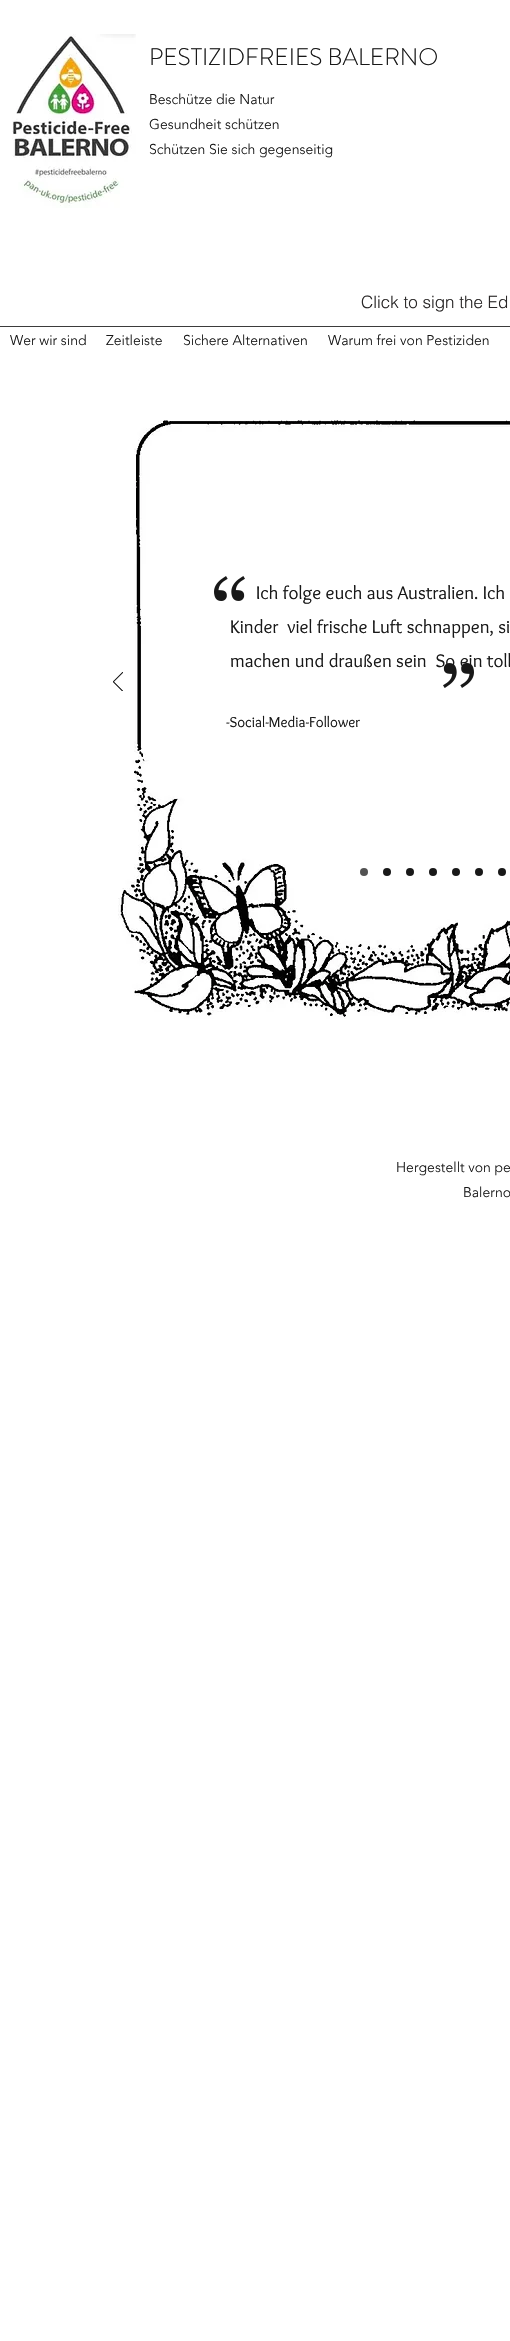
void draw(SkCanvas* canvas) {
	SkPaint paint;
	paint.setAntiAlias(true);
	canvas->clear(0xffffffff);
	canvas->drawImageRect(SkImages::DeferredFromEncodedData(SkData::MakeFromFileName("img1.png")), SkRect::MakeXYWH(12, 34, 124, 174), SkSamplingOptions());
	SkFont f1(fontMgr->matchFamilyStyle("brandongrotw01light", SkFontStyle(300, SkFontStyle::kNormal_Width, SkFontStyle::kUpright_Slant)), 24);
	f1.setSubpixel(true);
	paint.setColor(0xff181818);
	canvas->drawString("PESTIZIDFREIES BALERNO", 149, 65, f1, paint);
	SkFont f2(fontMgr->matchFamilyStyle("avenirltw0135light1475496", SkFontStyle(300, SkFontStyle::kNormal_Width, SkFontStyle::kUpright_Slant)), 14);
	f2.setSubpixel(true);
	canvas->drawString("Beschütze die Natur", 149, 104, f2, paint);
	canvas->drawString("Gesundheit schützen", 149, 129, f2, paint);
	canvas->drawString("Schützen Sie sich gegenseitig", 149, 154, f2, paint);
	SkFont f3(fontMgr->matchFamilyStyle("helvetica", SkFontStyle(300, SkFontStyle::kNormal_Width, SkFontStyle::kUpright_Slant)), 17);
	f3.setSubpixel(true);
	paint.setColor(0xff282626);
	canvas->drawString("Click to sign the Ed", 361, 308, f3, paint);
	paint.setColor(0xff3b3b3b);
	canvas->drawRect(SkRect::MakeXYWH(0, 326, 510, 1), paint);
	paint.setColor(0xff181818);
	canvas->drawString("Wer wir sind", 10, 345, f2, paint);
	canvas->drawString("Zeitleiste", 106, 345, f2, paint);
	canvas->drawString("Sichere Alternativen", 183, 345, f2, paint);
	canvas->drawString("Warum frei von Pestiziden", 328, 345, f2, paint);
	canvas->drawImageRect(SkImages::DeferredFromEncodedData(SkData::MakeFromFileName("img2.png")), SkRect::MakeXYWH(118, 420, 392, 599), SkSamplingOptions());
	canvas->drawImageRect(SkImages::DeferredFromEncodedData(SkData::MakeFromFileName("img3.png")), SkRect::MakeXYWH(113, 672, 10, 19), SkSamplingOptions());
	canvas->drawImageRect(SkImages::DeferredFromEncodedData(SkData::MakeFromFileName("img4.png")), SkRect::MakeXYWH(214, 576, 31, 25), SkSamplingOptions());
	SkFont f4(fontMgr->matchFamilyStyle("Overlock", SkFontStyle::Normal()), 19);
	f4.setSubpixel(true);
	canvas->drawString("Ich folge euch aus Australien. Ich", 256, 599, f4, paint);
	canvas->drawString("Kinder  viel frische Luft schnappen, si", 230, 633, f4, paint);
	canvas->drawString("machen und draußen sein  So ein toll", 230, 667, f4, paint);
	canvas->drawImageRect(SkImages::DeferredFromEncodedData(SkData::MakeFromFileName("img5.png")), SkRect::MakeXYWH(443, 663, 31, 25), SkSamplingOptions());
	SkFont f5(fontMgr->matchFamilyStyle("Overlock", SkFontStyle::Normal()), 15);
	f5.setSubpixel(true);
	canvas->drawString("-Social-Media-Follower", 226, 727, f5, paint);
	paint.setColor(0xff525252);
	canvas->drawCircle(364, 872, 4, paint);
	paint.setColor(0xff181818);
	canvas->drawCircle(387, 872, 4, paint);
	canvas->drawCircle(410, 872, 4, paint);
	canvas->drawCircle(433, 872, 4, paint);
	canvas->drawCircle(456, 872, 4, paint);
	canvas->drawCircle(479, 872, 4, paint);
	canvas->drawCircle(502, 872, 4, paint);
	canvas->drawString("Hergestellt von pe", 396, 1172, f2, paint);
	canvas->drawString("Balerno", 463, 1197, f2, paint);
}
